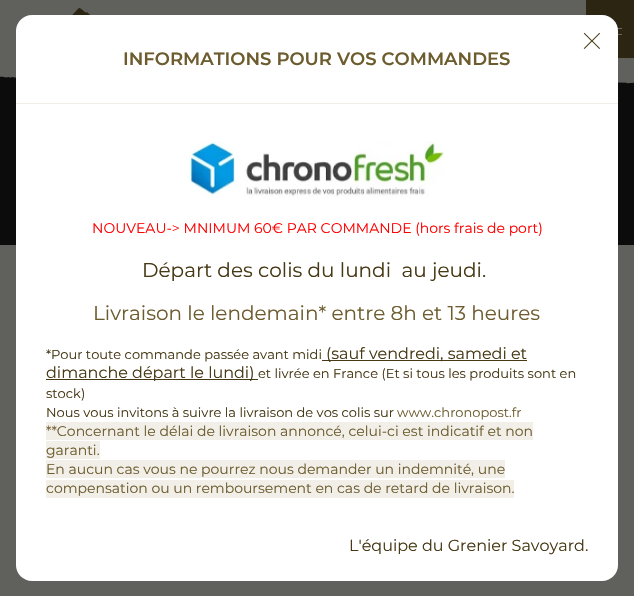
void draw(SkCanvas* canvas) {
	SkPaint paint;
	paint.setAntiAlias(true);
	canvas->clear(0xff60605d);
	canvas->drawImageRect(SkImages::DeferredFromEncodedData(SkData::MakeFromFileName("img1.png")), SkRect::MakeXYWH(72, 8, 18, 7), SkSamplingOptions());
	paint.setColor(0xff2c2512);
	canvas->drawRect(SkRect::MakeXYWH(586, 0, 48, 58), paint);
	paint.setColor(0xff666666);
	canvas->drawRect(SkRect::MakeXYWH(615, 22, 1, 1), paint);
	canvas->drawRect(SkRect::MakeXYWH(617, 28, 5, 1), paint);
	canvas->drawRect(SkRect::MakeXYWH(618, 34, 4, 1), paint);
	paint.setColor(0xff0c0c0c);
	canvas->drawRect(SkRect::MakeXYWH(0, 76, 634, 169), paint);
	canvas->drawImageRect(SkImages::DeferredFromEncodedData(SkData::MakeFromFileName("img2.png")), SkRect::MakeXYWH(0, 68, 634, 16), SkSamplingOptions());
	paint.setColor(0xffffffff);
	canvas->drawRoundRect(SkRect::MakeXYWH(16, 15, 602, 566), 16, 16, paint);
	paint.setColor(0xfff1efe8);
	canvas->drawRect(SkRect::MakeXYWH(16, 103, 602, 1), paint);
	canvas->drawImageRect(SkImages::DeferredFromEncodedData(SkData::MakeFromFileName("img3.png")), SkRect::MakeXYWH(583, 32, 17, 17), SkSamplingOptions());
	SkFont f1(fontMgr->matchFamilyStyle("Montserrat", SkFontStyle(600, SkFontStyle::kNormal_Width, SkFontStyle::kUpright_Slant)), 18);
	f1.setSubpixel(true);
	paint.setColor(0xff6d5c2e);
	canvas->drawString("INFORMATIONS POUR VOS COMMANDES", 123, 65, f1, paint);
	canvas->drawImageRect(SkImages::DeferredFromEncodedData(SkData::MakeFromFileName("img4.png")), SkRect::MakeXYWH(189, 141, 255, 58), SkSamplingOptions());
	SkFont f2(fontMgr->matchFamilyStyle("Montserrat", SkFontStyle::Normal()), 14);
	f2.setSubpixel(true);
	paint.setColor(0xffff0000);
	canvas->drawString("NOUVEAU-> MNIMUM 60€ PAR COMMANDE (hors frais de port)", 92, 233, f2, paint);
	SkFont f3(fontMgr->matchFamilyStyle("Montserrat", SkFontStyle::Normal()), 20);
	f3.setSubpixel(true);
	paint.setColor(0xff473915);
	canvas->drawString("Départ des colis du lundi  au jeudi.", 142, 277, f3, paint);
	paint.setColor(0xff6d5c2e);
	canvas->drawString("Livraison le lendemain* entre 8h et 13 heures", 93, 320, f3, paint);
	SkFont f4(fontMgr->matchFamilyStyle("Montserrat", SkFontStyle::Normal()), 13);
	f4.setSubpixel(true);
	paint.setColor(0xff473915);
	canvas->drawString("*Pour toute commande passée avant midi", 46, 359, f4, paint);
	canvas->drawRect(SkRect::MakeXYWH(322, 360, 205, 1), paint);
	SkFont f5(fontMgr->matchFamilyStyle("Montserrat", SkFontStyle::Normal()), 16);
	f5.setSubpixel(true);
	canvas->drawString("(sauf vendredi, samedi et", 326, 359, f5, paint);
	canvas->drawRect(SkRect::MakeXYWH(46, 379, 212, 1), paint);
	canvas->drawString("dimanche départ le lundi)", 46, 378, f5, paint);
	canvas->drawString("et livrée en France (Et si tous les produits sont en", 258, 378, f4, paint);
	canvas->drawString("stock)", 46, 398, f4, paint);
	canvas->drawString("Nous vous invitons à suivre la livraison de vos colis sur", 46, 417, f4, paint);
	paint.setColor(0xff6d5c2e);
	canvas->drawString("www.chronopost.fr", 397, 417, f4, paint);
	paint.setColor(0xfff1efe8);
	canvas->drawRect(SkRect::MakeXYWH(46, 422, 487, 18), paint);
	paint.setColor(0xff6d5c2e);
	canvas->drawString("**Concernant le délai de livraison annoncé, celui-ci est indicatif et non", 46, 436, f2, paint);
	paint.setColor(0xfff1efe8);
	canvas->drawRect(SkRect::MakeXYWH(46, 441, 54, 18), paint);
	paint.setColor(0xff6d5c2e);
	canvas->drawString("garanti.", 46, 455, f2, paint);
	paint.setColor(0xfff1efe8);
	canvas->drawRect(SkRect::MakeXYWH(46, 460, 459, 18), paint);
	paint.setColor(0xff6d5c2e);
	canvas->drawString("En aucun cas vous ne pourrez nous demander un indemnité, une", 46, 474, f2, paint);
	paint.setColor(0xfff1efe8);
	canvas->drawRect(SkRect::MakeXYWH(46, 480, 468, 18), paint);
	paint.setColor(0xff6d5c2e);
	canvas->drawString("compensation ou un remboursement en cas de retard de livraison.", 46, 493, f2, paint);
	paint.setColor(0xff473915);
	canvas->drawString("L'équipe du Grenier Savoyard.", 349, 551, f5, paint);
}
